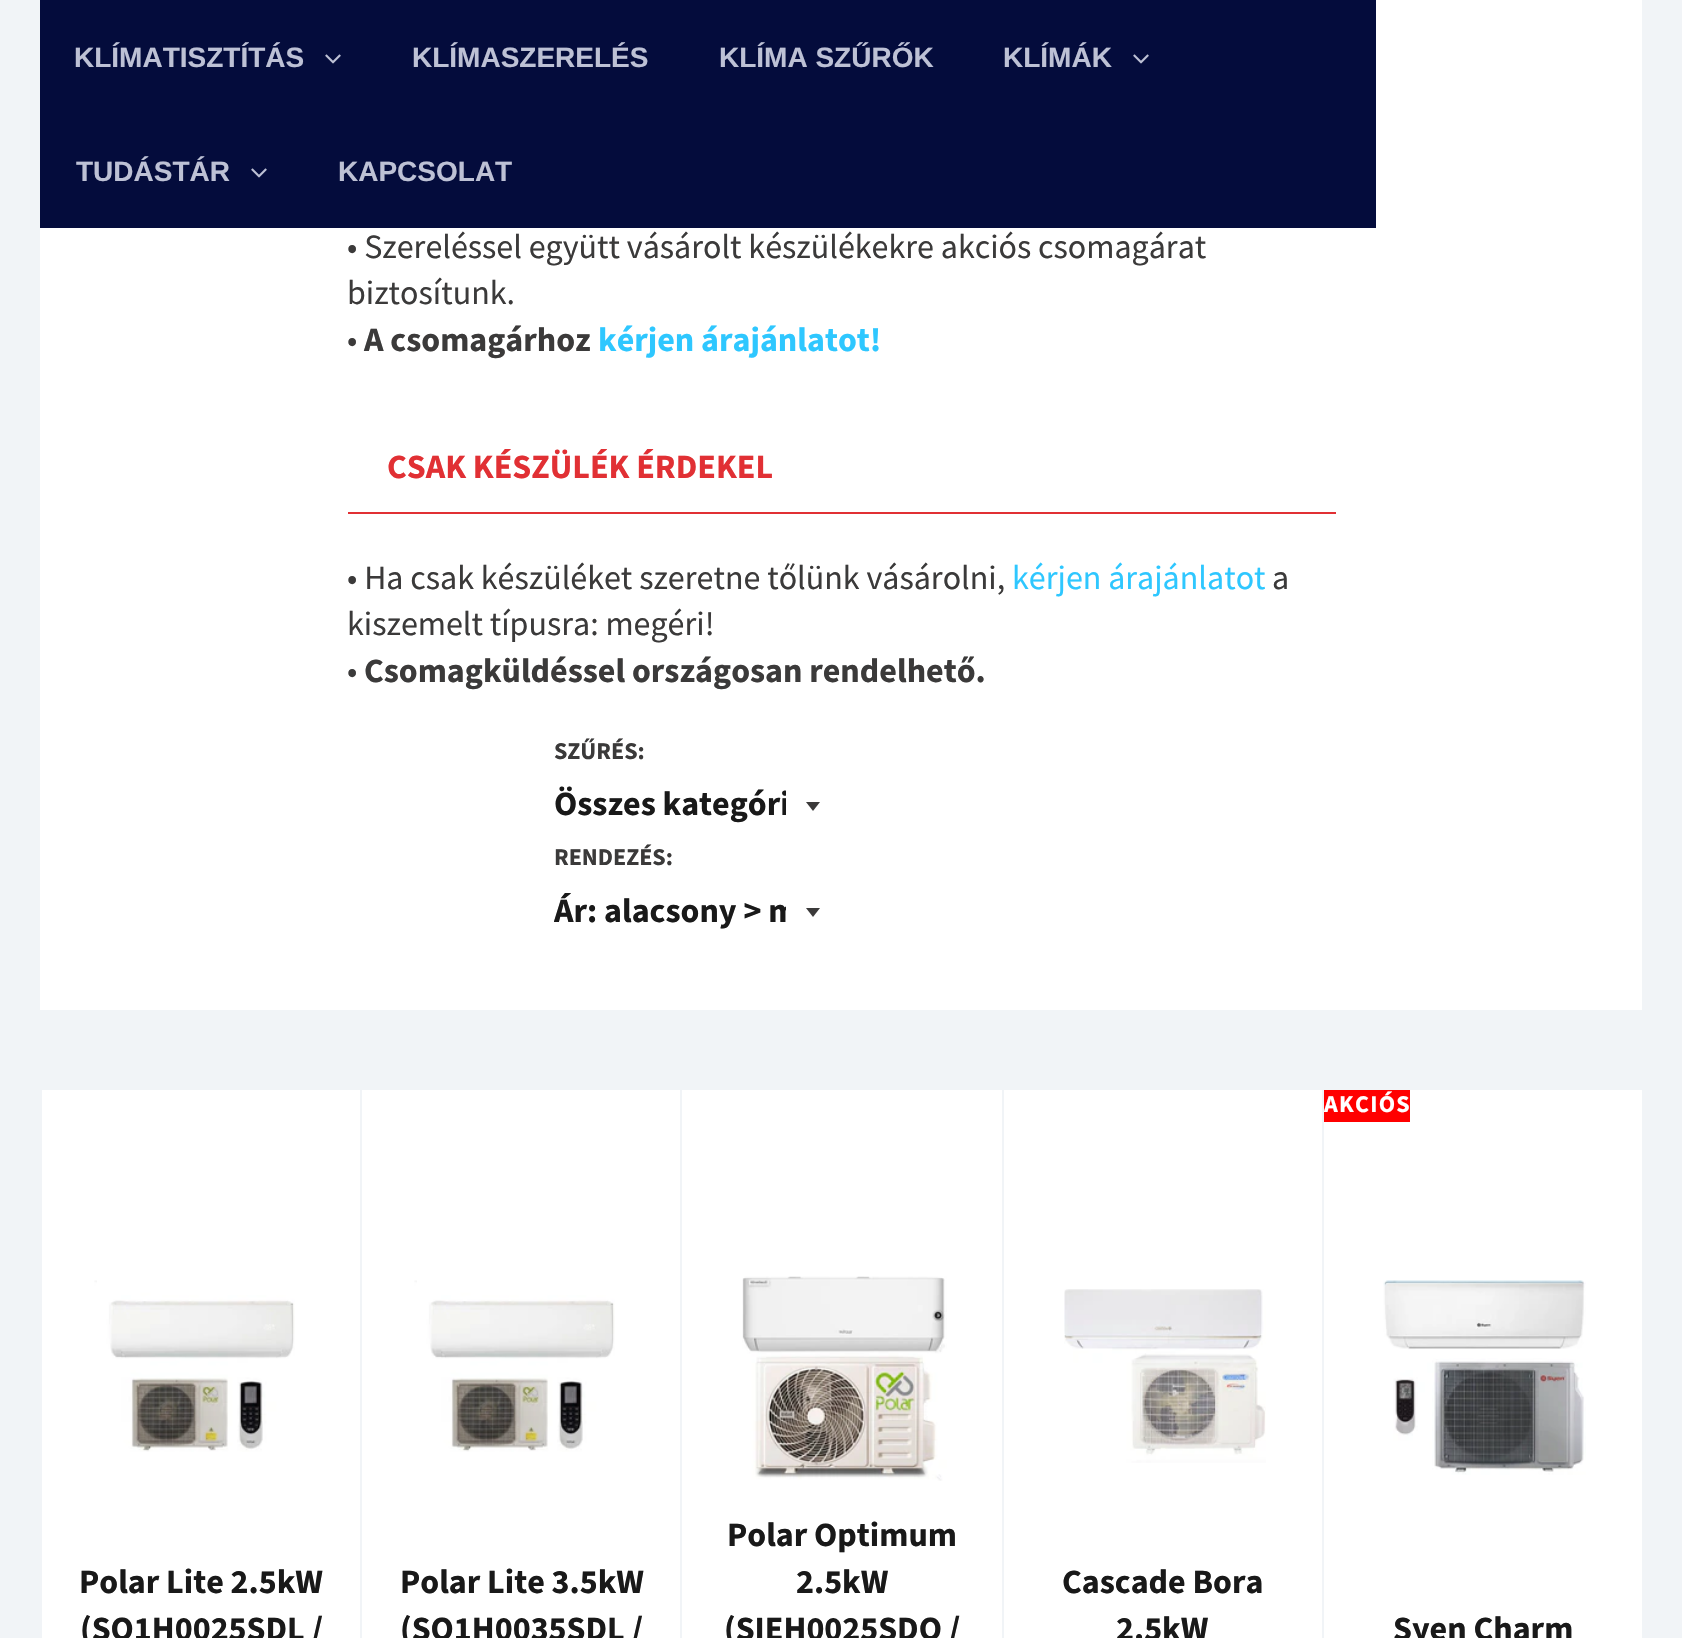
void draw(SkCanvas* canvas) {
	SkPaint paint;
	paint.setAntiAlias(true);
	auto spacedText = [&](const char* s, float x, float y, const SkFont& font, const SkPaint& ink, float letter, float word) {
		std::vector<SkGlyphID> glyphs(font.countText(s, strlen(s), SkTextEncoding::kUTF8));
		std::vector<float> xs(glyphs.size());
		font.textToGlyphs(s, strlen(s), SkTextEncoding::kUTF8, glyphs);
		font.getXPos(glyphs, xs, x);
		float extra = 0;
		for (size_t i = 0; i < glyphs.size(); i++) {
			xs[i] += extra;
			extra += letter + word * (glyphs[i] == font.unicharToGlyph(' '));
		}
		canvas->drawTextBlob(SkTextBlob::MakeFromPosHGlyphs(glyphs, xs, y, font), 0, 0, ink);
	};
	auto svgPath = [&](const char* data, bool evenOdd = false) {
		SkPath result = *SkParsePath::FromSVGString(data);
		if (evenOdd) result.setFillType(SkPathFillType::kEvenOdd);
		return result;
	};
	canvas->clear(0xfff1f4f7);
	paint.setColor(0xffffffff);
	canvas->drawRect(SkRect::MakeXYWH(40, 0, 1602, 1010), paint);
	paint.setColor(0xff040c3c);
	canvas->drawRect(SkRect::MakeXYWH(40, 0, 1336, 228), paint);
	SkFont f1(fontMgr->matchFamilyStyle("Liberation Sans", SkFontStyle::Bold()), 28);
	f1.setSubpixel(true);
	paint.setColor(0xffbdc1d5);
	canvas->drawString("KLÍMATISZTÍTÁS", 74, 67, f1, paint);
	canvas->drawImageRect(SkImages::DeferredFromEncodedData(SkData::MakeFromFileName("img1.png")), SkRect::MakeXYWH(325, 54, 16, 10), SkSamplingOptions());
	canvas->drawString("KLÍMASZERELÉS", 412, 67, f1, paint);
	canvas->drawString("KLÍMA SZŰRŐK", 719, 67, f1, paint);
	canvas->drawString("KLÍMÁK", 1003, 67, f1, paint);
	canvas->drawImageRect(SkImages::DeferredFromEncodedData(SkData::MakeFromFileName("img1.png")), SkRect::MakeXYWH(1133, 54, 16, 10), SkSamplingOptions());
	canvas->drawString("TUDÁSTÁR", 76, 181, f1, paint);
	canvas->drawImageRect(SkImages::DeferredFromEncodedData(SkData::MakeFromFileName("img1.png")), SkRect::MakeXYWH(251, 168, 16, 10), SkSamplingOptions());
	canvas->drawString("KAPCSOLAT", 338, 181, f1, paint);
	SkFont f2(fontMgr->matchFamilyStyle("Source Sans Pro", SkFontStyle::Normal()), 34);
	f2.setSubpixel(true);
	paint.setColor(0xff3b3a3a);
	canvas->drawString("• Szereléssel együtt vásárolt készülékekre akciós csomagárat", 347, 258, f2, paint);
	canvas->drawString("biztosítunk.", 347, 304, f2, paint);
	canvas->drawString("•", 347, 351, f2, paint);
	SkFont f3(fontMgr->matchFamilyStyle("Source Sans Pro", SkFontStyle::Bold()), 34);
	f3.setSubpixel(true);
	canvas->drawString("A csomagárhoz", 364, 351, f3, paint);
	paint.setColor(0xff2ec7ff);
	canvas->drawString("kérjen árajánlatot!", 598, 351, f3, paint);
	paint.setColor(0xffe13034);
	canvas->drawRect(SkRect::MakeXYWH(348, 512, 988, 2), paint);
	canvas->drawString("CSAK KÉSZÜLÉK ÉRDEKEL", 387, 478, f3, paint);
	paint.setColor(0xff3b3a3a);
	canvas->drawString("• Ha csak készüléket szeretne tőlünk vásárolni,", 347, 589, f2, paint);
	paint.setColor(0xff2ec7ff);
	canvas->drawString("kérjen árajánlatot", 1012, 589, f2, paint);
	paint.setColor(0xff3b3a3a);
	canvas->drawString("a", 1272, 589, f2, paint);
	canvas->drawString("kiszemelt típusra: megéri!", 347, 635, f2, paint);
	canvas->drawString("•", 347, 682, f2, paint);
	canvas->drawString("Csomagküldéssel országosan rendelhető.", 364, 682, f3, paint);
	SkFont f4(fontMgr->matchFamilyStyle("Source Sans Pro", SkFontStyle::Bold()), 24);
	f4.setSubpixel(true);
	canvas->drawString("SZŰRÉS:", 554, 759, f4, paint);
	canvas->drawPath(svgPath("M806 802L813 811L820 802Z"), paint);
	canvas->save();
	canvas->clipRect(SkRect::MakeXYWH(554, 784, 232, 46));
	paint.setColor(0xff191919);
	canvas->drawString("Összes kategóri", 554, 815, f3, paint);
	canvas->restore();
	paint.setColor(0xff3b3a3a);
	canvas->drawString("RENDEZÉS:", 554, 865, f4, paint);
	canvas->drawPath(svgPath("M806 908L813 917L820 908Z"), paint);
	canvas->save();
	canvas->clipRect(SkRect::MakeXYWH(554, 890, 232, 46));
	paint.setColor(0xff191919);
	canvas->drawString("Ár: alacsony > m", 554, 922, f3, paint);
	canvas->restore();
	paint.setColor(0xffffffff);
	canvas->drawRect(SkRect::MakeXYWH(42, 1090, 1600, 548), paint);
	canvas->drawImageRect(SkImages::DeferredFromEncodedData(SkData::MakeFromFileName("img2.png")), SkRect::MakeXYWH(94, 1280, 201, 172), SkSamplingOptions());
	paint.setColor(0xff191919);
	canvas->drawString("Polar Lite 2.5kW", 79, 1593, f3, paint);
	canvas->drawString("(SO1H0025SDL /", 80, 1640, f3, paint);
	paint.setColor(0xfff1f4f7);
	canvas->drawRect(SkRect::MakeXYWH(360, 1090, 2, 548), paint);
	canvas->drawImageRect(SkImages::DeferredFromEncodedData(SkData::MakeFromFileName("img2.png")), SkRect::MakeXYWH(414, 1280, 201, 172), SkSamplingOptions());
	paint.setColor(0xff191919);
	canvas->drawString("Polar Lite 3.5kW", 400, 1593, f3, paint);
	canvas->drawString("(SO1H0035SDL /", 400, 1640, f3, paint);
	paint.setColor(0xfff1f4f7);
	canvas->drawRect(SkRect::MakeXYWH(680, 1090, 2, 548), paint);
	canvas->drawImageRect(SkImages::DeferredFromEncodedData(SkData::MakeFromFileName("img3.png")), SkRect::MakeXYWH(742, 1276, 205, 205), SkSamplingOptions());
	paint.setColor(0xff191919);
	canvas->drawString("Polar Optimum", 727, 1546, f3, paint);
	canvas->drawString("2.5kW", 796, 1593, f3, paint);
	canvas->drawString("(SIEH0025SDO /", 724, 1640, f3, paint);
	paint.setColor(0xfff1f4f7);
	canvas->drawRect(SkRect::MakeXYWH(1002, 1090, 2, 548), paint);
	canvas->drawImageRect(SkImages::DeferredFromEncodedData(SkData::MakeFromFileName("img4.png")), SkRect::MakeXYWH(1064, 1289, 202, 174), SkSamplingOptions());
	paint.setColor(0xff191919);
	canvas->drawString("Cascade Bora", 1062, 1593, f3, paint);
	canvas->drawString("2.5kW", 1116, 1640, f3, paint);
	paint.setColor(0xfff1f4f7);
	canvas->drawRect(SkRect::MakeXYWH(1322, 1090, 2, 548), paint);
	paint.setColor(0xffff0000);
	canvas->drawRect(SkRect::MakeXYWH(1324, 1090, 86, 32), paint);
	paint.setColor(0xffffffff);
	spacedText("AKCIÓS", 1324, 1112, f4, paint, 1.25, 0);
	canvas->drawImageRect(SkImages::DeferredFromEncodedData(SkData::MakeFromFileName("img5.png")), SkRect::MakeXYWH(1383, 1280, 203, 195), SkSamplingOptions());
	paint.setColor(0xff191919);
	canvas->drawString("Syen Charm", 1393, 1640, f3, paint);
}
